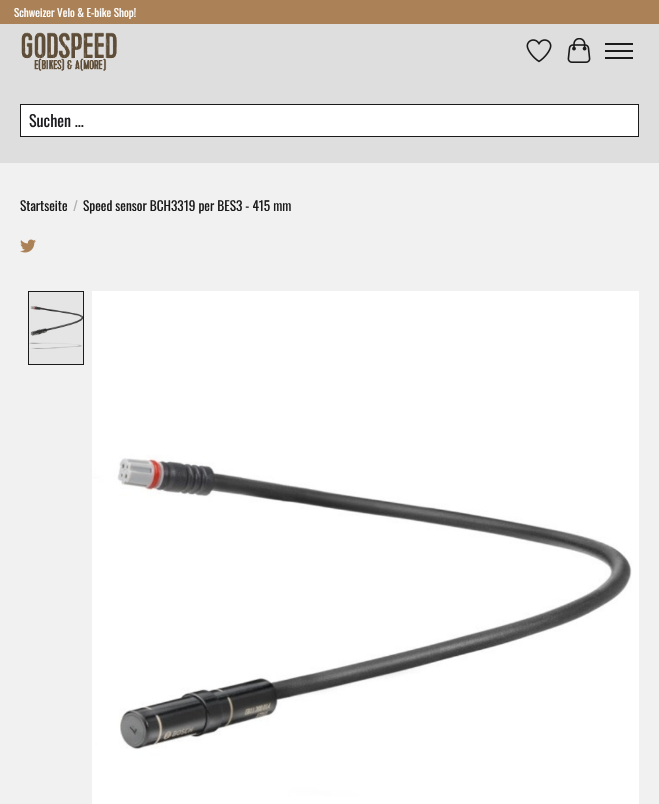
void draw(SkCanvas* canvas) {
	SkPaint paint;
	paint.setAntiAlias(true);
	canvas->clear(0xfff1f1f1);
	paint.setColor(0xffdedede);
	canvas->drawRect(SkRect::MakeXYWH(0, 24, 659, 139), paint);
	paint.setColor(0xffab8257);
	canvas->drawRect(SkRect::MakeXYWH(0, 0, 659, 24), paint);
	SkFont f1(fontMgr->matchFamilyStyle("Oswald", SkFontStyle::Normal()), 11.1);
	f1.setSubpixel(true);
	paint.setColor(0xffffffff);
	canvas->drawString("Schweizer Velo & E-bike Shop!", 14, 17, f1, paint);
	canvas->drawImageRect(SkImages::DeferredFromEncodedData(SkData::MakeFromFileName("img1.png")), SkRect::MakeXYWH(21, 32, 96, 39), SkSamplingOptions());
	canvas->drawImageRect(SkImages::DeferredFromEncodedData(SkData::MakeFromFileName("img2.png")), SkRect::MakeXYWH(526, 39, 26, 24), SkSamplingOptions());
	canvas->drawImageRect(SkImages::DeferredFromEncodedData(SkData::MakeFromFileName("img3.png")), SkRect::MakeXYWH(567, 38, 24, 25), SkSamplingOptions());
	paint.setColor(0xff1a1a1a);
	canvas->drawRect(SkRect::MakeXYWH(605, 50, 28, 2), paint);
	canvas->drawRect(SkRect::MakeXYWH(605, 43, 28, 2), paint);
	canvas->drawRect(SkRect::MakeXYWH(605, 57, 28, 2), paint);
	paint.setColor(0xffffffff);
	canvas->drawRect(SkRect::MakeXYWH(20.5, 104.5, 618, 32), paint);
	paint.setStroke(true);
	paint.setStrokeWidth(1);
	paint.setColor(0xff1a1a1a);
	canvas->drawRect(SkRect::MakeXYWH(20.5, 104.5, 618, 32), paint);
	SkFont f2(fontMgr->matchFamilyStyle("Oswald", SkFontStyle::Normal()), 16);
	f2.setSubpixel(true);
	paint.setStroke(false);
	paint.setColor(0xff1c1c21);
	canvas->drawString("Suchen ...", 29, 127, f2, paint);
	SkFont f3(fontMgr->matchFamilyStyle("Oswald", SkFontStyle::Normal()), 13.3);
	f3.setSubpixel(true);
	paint.setColor(0xff1a1a1a);
	canvas->drawString("Startseite", 20, 211, f3, paint);
	paint.setColor(0xffb1b1b1);
	canvas->drawString("/", 73, 211, f3, paint);
	paint.setColor(0xff1a1a1a);
	canvas->drawString("Speed sensor BCH3319 per BES3 - 415 mm", 83, 211, f3, paint);
	canvas->drawImageRect(SkImages::DeferredFromEncodedData(SkData::MakeFromFileName("img4.png")), SkRect::MakeXYWH(20, 239, 16, 14), SkSamplingOptions());
	canvas->drawImageRect(SkImages::DeferredFromEncodedData(SkData::MakeFromFileName("img5.png")), SkRect::MakeXYWH(29, 292, 54, 72), SkSamplingOptions());
	paint.setStroke(true);
	canvas->drawRect(SkRect::MakeXYWH(28.5, 291.5, 55, 73), paint);
	canvas->drawImageRect(SkImages::DeferredFromEncodedData(SkData::MakeFromFileName("img6.png")), SkRect::MakeXYWH(92, 291, 547, 513), SkSamplingOptions());
}
